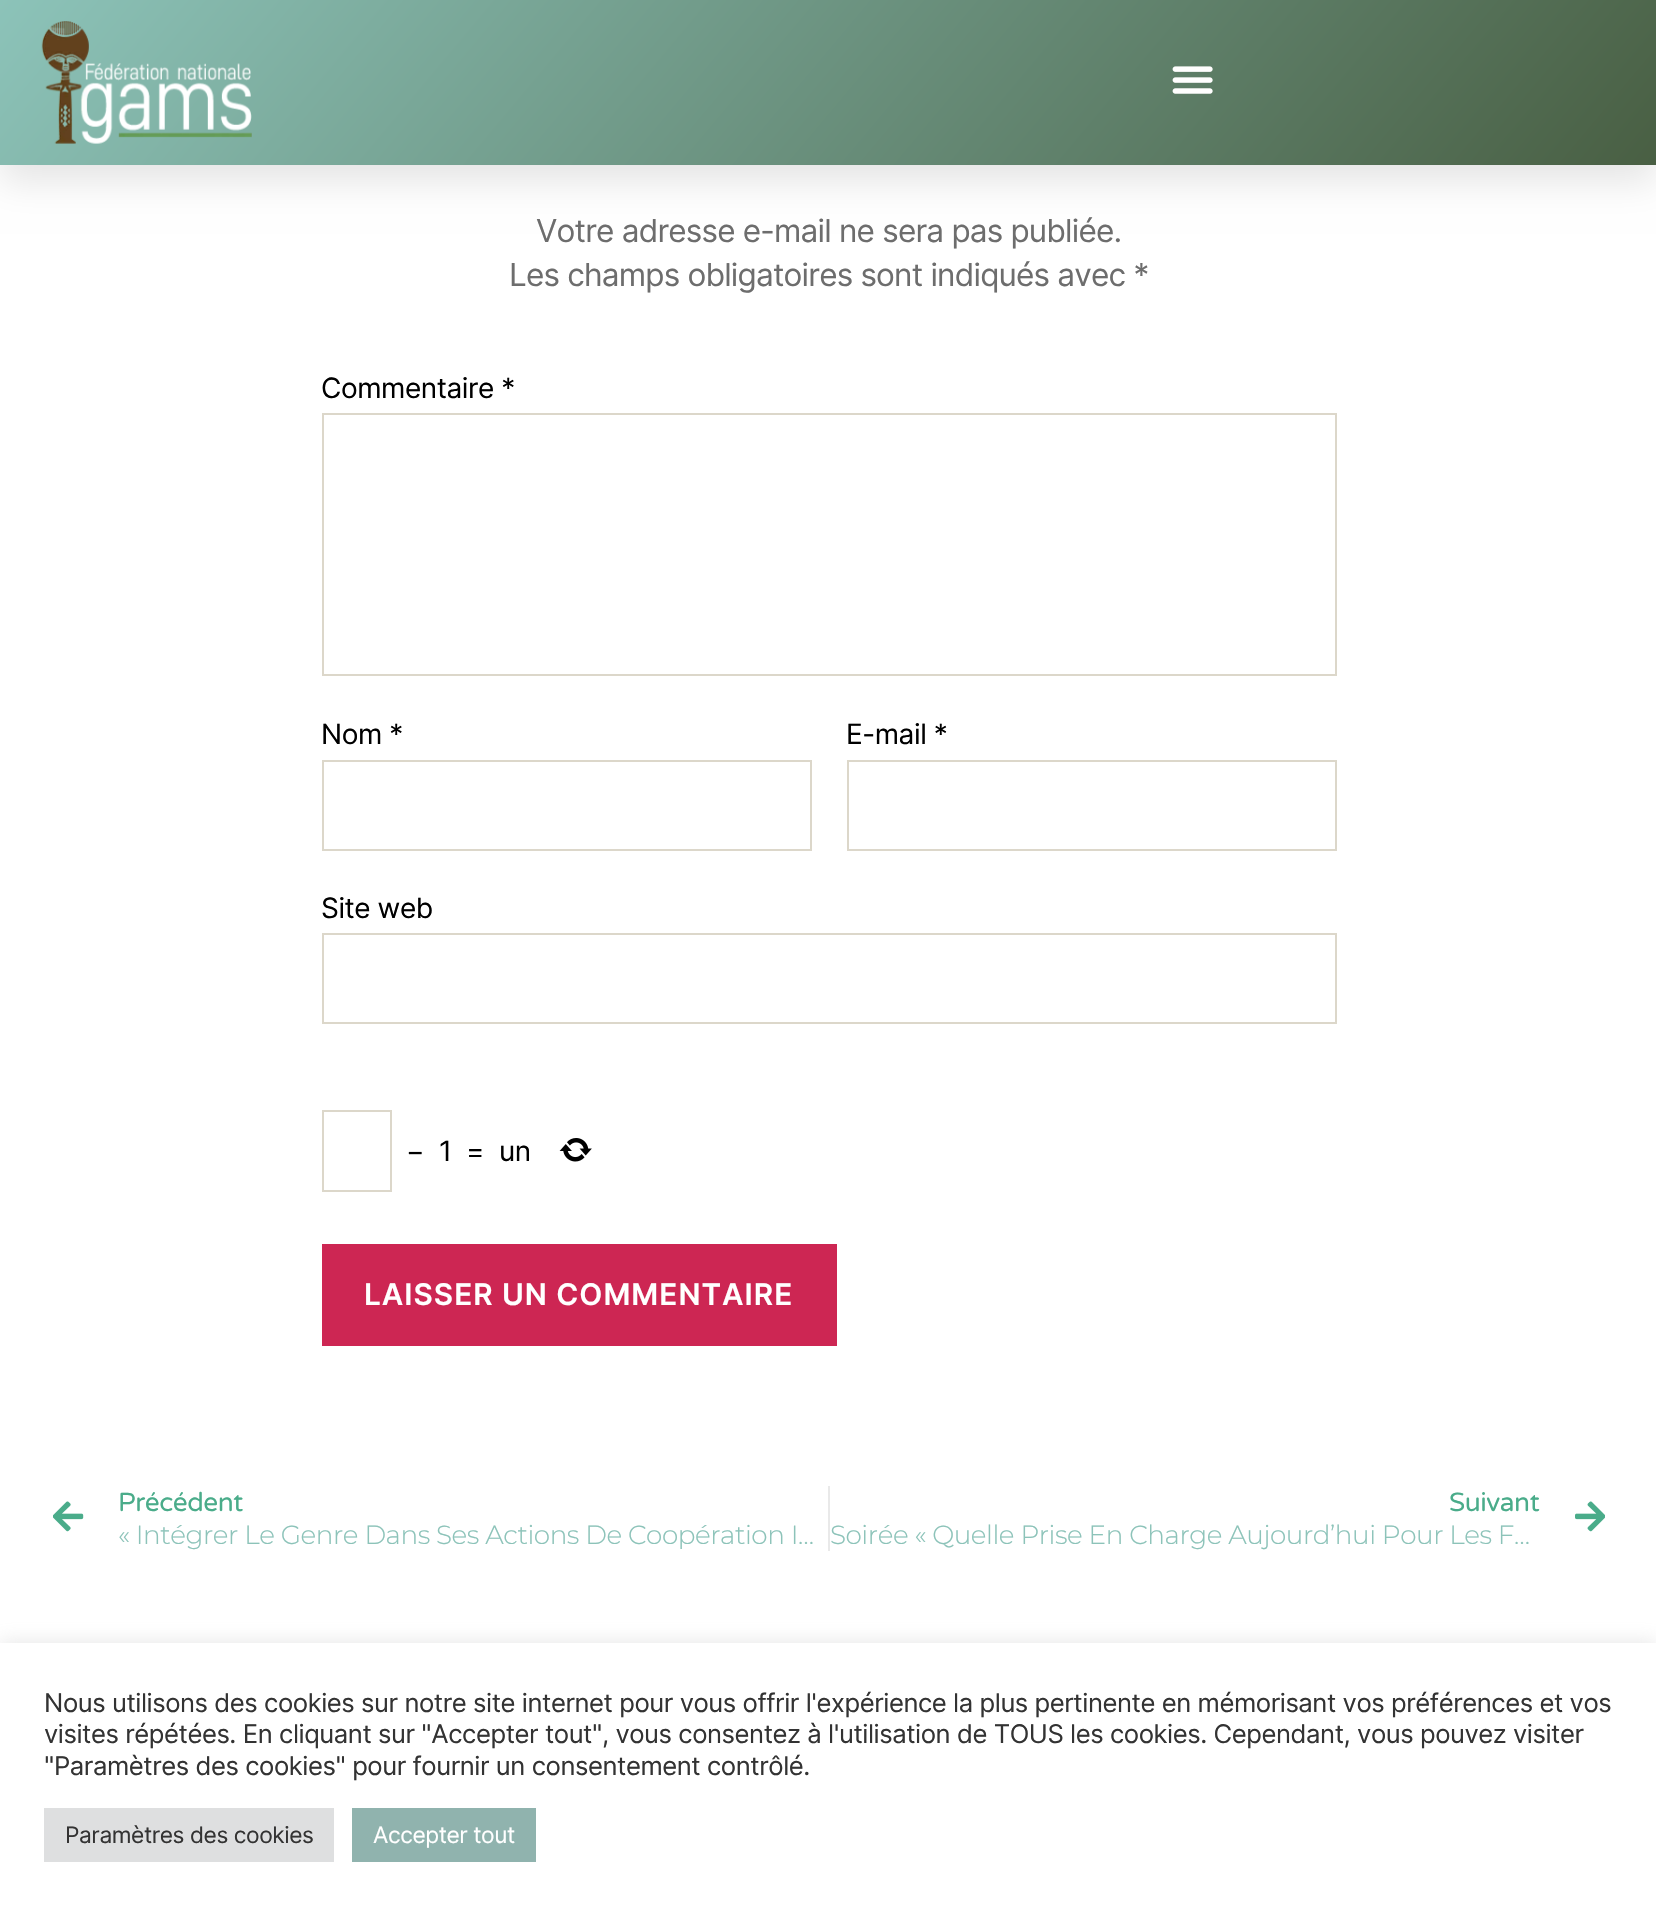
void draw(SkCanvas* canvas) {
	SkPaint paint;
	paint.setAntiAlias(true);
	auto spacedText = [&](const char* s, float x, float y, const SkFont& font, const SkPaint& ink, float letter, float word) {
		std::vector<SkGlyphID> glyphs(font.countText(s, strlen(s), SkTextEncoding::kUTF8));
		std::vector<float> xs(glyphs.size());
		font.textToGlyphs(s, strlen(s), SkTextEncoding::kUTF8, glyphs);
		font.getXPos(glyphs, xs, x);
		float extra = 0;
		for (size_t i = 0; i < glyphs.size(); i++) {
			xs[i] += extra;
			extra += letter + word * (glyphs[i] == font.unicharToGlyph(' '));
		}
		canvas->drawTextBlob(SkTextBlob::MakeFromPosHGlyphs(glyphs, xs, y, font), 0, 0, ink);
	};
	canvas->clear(0xffffffff);
	paint.setColor(0x1a000000);
	paint.setMaskFilter(SkMaskFilter::MakeBlur(kNormal_SkBlurStyle, 17.5));
	canvas->drawRect(SkRect::MakeXYWH(0, 18, 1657, 164), paint);
	paint.setMaskFilter(nullptr);
	{
		const SkColor colors[] = {0xff8cc3b9, 0xff495f43};
		const float stops[] = {0, 1};
		const SkPoint ends[] = {{302, -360}, {1355, 524}};
		paint.setShader(SkGradientShader::MakeLinear(ends, colors, stops, 2, SkTileMode::kClamp));
		paint.setAlpha(255);
	}
	canvas->drawRect(SkRect::MakeXYWH(0, 0, 1656, 165), paint);
	canvas->drawImageRect(SkImages::DeferredFromEncodedData(SkData::MakeFromFileName("img1.png")), SkRect::MakeXYWH(41, 21, 211, 123), SkSamplingOptions());
	canvas->drawImageRect(SkImages::DeferredFromEncodedData(SkData::MakeFromFileName("img2.png")), SkRect::MakeXYWH(1172, 66, 41, 28), SkSamplingOptions());
	SkFont f1(fontMgr->matchFamilyStyle("Inter", SkFontStyle::Normal()), 31.5);
	f1.setSubpixel(true);
	paint.setShader(nullptr);
	paint.setColor(0xff6d6d6d);
	spacedText("Votre adresse e-mail ne sera pas publiée.", 536, 242, f1, paint, -0.8, 0);
	spacedText("Les champs obligatoires sont indiqués avec *", 509, 286, f1, paint, -0.8, 0);
	SkFont f2(fontMgr->matchFamilyStyle("Inter", SkFontStyle::Normal()), 28);
	f2.setSubpixel(true);
	paint.setColor(0xff000000);
	spacedText("Commentaire *", 321, 398, f2, paint, -0.45, 0);
	paint.setStroke(true);
	paint.setStrokeWidth(2);
	paint.setColor(0xffdcd7ca);
	canvas->drawRect(SkRect::MakeXYWH(323, 414, 1013, 261), paint);
	paint.setStroke(false);
	paint.setColor(0xff000000);
	spacedText("Nom *", 321, 744, f2, paint, -0.45, 0);
	paint.setStroke(true);
	paint.setColor(0xffdcd7ca);
	canvas->drawRect(SkRect::MakeXYWH(323, 761, 488, 89), paint);
	paint.setStroke(false);
	paint.setColor(0xff000000);
	spacedText("E-mail *", 846, 744, f2, paint, -0.45, 0);
	paint.setStroke(true);
	paint.setColor(0xffdcd7ca);
	canvas->drawRect(SkRect::MakeXYWH(848, 761, 488, 89), paint);
	paint.setStroke(false);
	paint.setColor(0xff000000);
	spacedText("Site web", 321, 918, f2, paint, -0.45, 0);
	paint.setStroke(true);
	paint.setColor(0xffdcd7ca);
	canvas->drawRect(SkRect::MakeXYWH(323, 934, 1013, 89), paint);
	canvas->drawRect(SkRect::MakeXYWH(323, 1111, 68, 80), paint);
	paint.setStroke(false);
	paint.setColor(0xff000000);
	spacedText("−", 406, 1161, f2, paint, -0.45, 0);
	spacedText("1", 439, 1161, f2, paint, -0.45, 0);
	spacedText("=", 466, 1161, f2, paint, -0.45, 0);
	spacedText("un", 499, 1161, f2, paint, -0.45, 0);
	canvas->drawImageRect(SkImages::DeferredFromEncodedData(SkData::MakeFromFileName("img3.png")), SkRect::MakeXYWH(559, 1138, 33, 24), SkSamplingOptions());
	paint.setColor(0xffcd2653);
	canvas->drawRect(SkRect::MakeXYWH(322, 1244, 515, 102), paint);
	SkFont f3(fontMgr->matchFamilyStyle("Inter", SkFontStyle(600, SkFontStyle::kNormal_Width, SkFontStyle::kUpright_Slant)), 29.75);
	f3.setSubpixel(true);
	paint.setColor(0xffffffff);
	spacedText("LAISSER UN COMMENTAIRE", 364, 1305, f3, paint, 1, 0);
	canvas->drawImageRect(SkImages::DeferredFromEncodedData(SkData::MakeFromFileName("img4.png")), SkRect::MakeXYWH(53, 1501, 31, 31), SkSamplingOptions());
	SkFont f4(fontMgr->matchFamilyStyle("Varela Round", SkFontStyle::Normal()), 26.25);
	f4.setSubpixel(true);
	paint.setColor(0xff4aac8a);
	spacedText("Précédent", 118, 1511, f4, paint, -0.45, 0);
	SkFont f5(fontMgr->matchFamilyStyle("Montserrat", SkFontStyle(300, SkFontStyle::kNormal_Width, SkFontStyle::kUpright_Slant)), 26.25);
	f5.setSubpixel(true);
	paint.setColor(0xff8cc3b9);
	spacedText("« Intégrer Le Genre Dans Ses Actions De Coopération I…", 118, 1544, f5, paint, -0.45, 0);
	paint.setColor(0xffe9e9e9);
	canvas->drawRect(SkRect::MakeXYWH(828, 1486, 2, 65), paint);
	paint.setColor(0xff4aac8a);
	spacedText("Suivant", 1449, 1511, f4, paint, -0.45, 0);
	paint.setColor(0xff8cc3b9);
	spacedText("Soirée « Quelle Prise En Charge Aujourd’hui Pour Les F…", 830, 1544, f5, paint, -0.45, 0);
	canvas->drawImageRect(SkImages::DeferredFromEncodedData(SkData::MakeFromFileName("img5.png")), SkRect::MakeXYWH(1575, 1501, 30, 31), SkSamplingOptions());
	paint.setColor(0x4dacabab);
	paint.setMaskFilter(SkMaskFilter::MakeBlur(kNormal_SkBlurStyle, 9));
	canvas->drawRect(SkRect::MakeXYWH(0, 1642, 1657, 271), paint);
	paint.setMaskFilter(nullptr);
	paint.setColor(0xffffffff);
	canvas->drawRect(SkRect::MakeXYWH(0, 1643, 1656, 270), paint);
	SkFont f6(fontMgr->matchFamilyStyle("Inter", SkFontStyle::Normal()), 25.67);
	f6.setSubpixel(true);
	paint.setColor(0xff333333);
	spacedText("Nous utilisons des cookies sur notre site internet pour vous offrir l'expérience la plus pertinente en mémorisant vos préférences et vos", 44, 1712, f6, paint, -0.45, 0);
	spacedText("visites répétées. En cliquant sur \"Accepter tout\", vous consentez à l'utilisation de TOUS les cookies. Cependant, vous pouvez visiter", 44, 1743, f6, paint, -0.45, 0);
	spacedText("\"Paramètres des cookies\" pour fournir un consentement contrôlé.", 44, 1775, f6, paint, -0.45, 0);
	paint.setColor(0xffdedfe0);
	canvas->drawRect(SkRect::MakeXYWH(44, 1808, 290, 54), paint);
	SkFont f7(fontMgr->matchFamilyStyle("Inter", SkFontStyle::Normal()), 22.75);
	f7.setSubpixel(true);
	paint.setColor(0xff333333);
	spacedText("Paramètres des cookies", 65, 1843, f7, paint, -0.45, 0);
	paint.setColor(0xff90b3ae);
	canvas->drawRect(SkRect::MakeXYWH(352, 1808, 184, 54), paint);
	paint.setColor(0xffffffff);
	spacedText("Accepter tout", 373, 1843, f7, paint, -0.45, 0);
}
